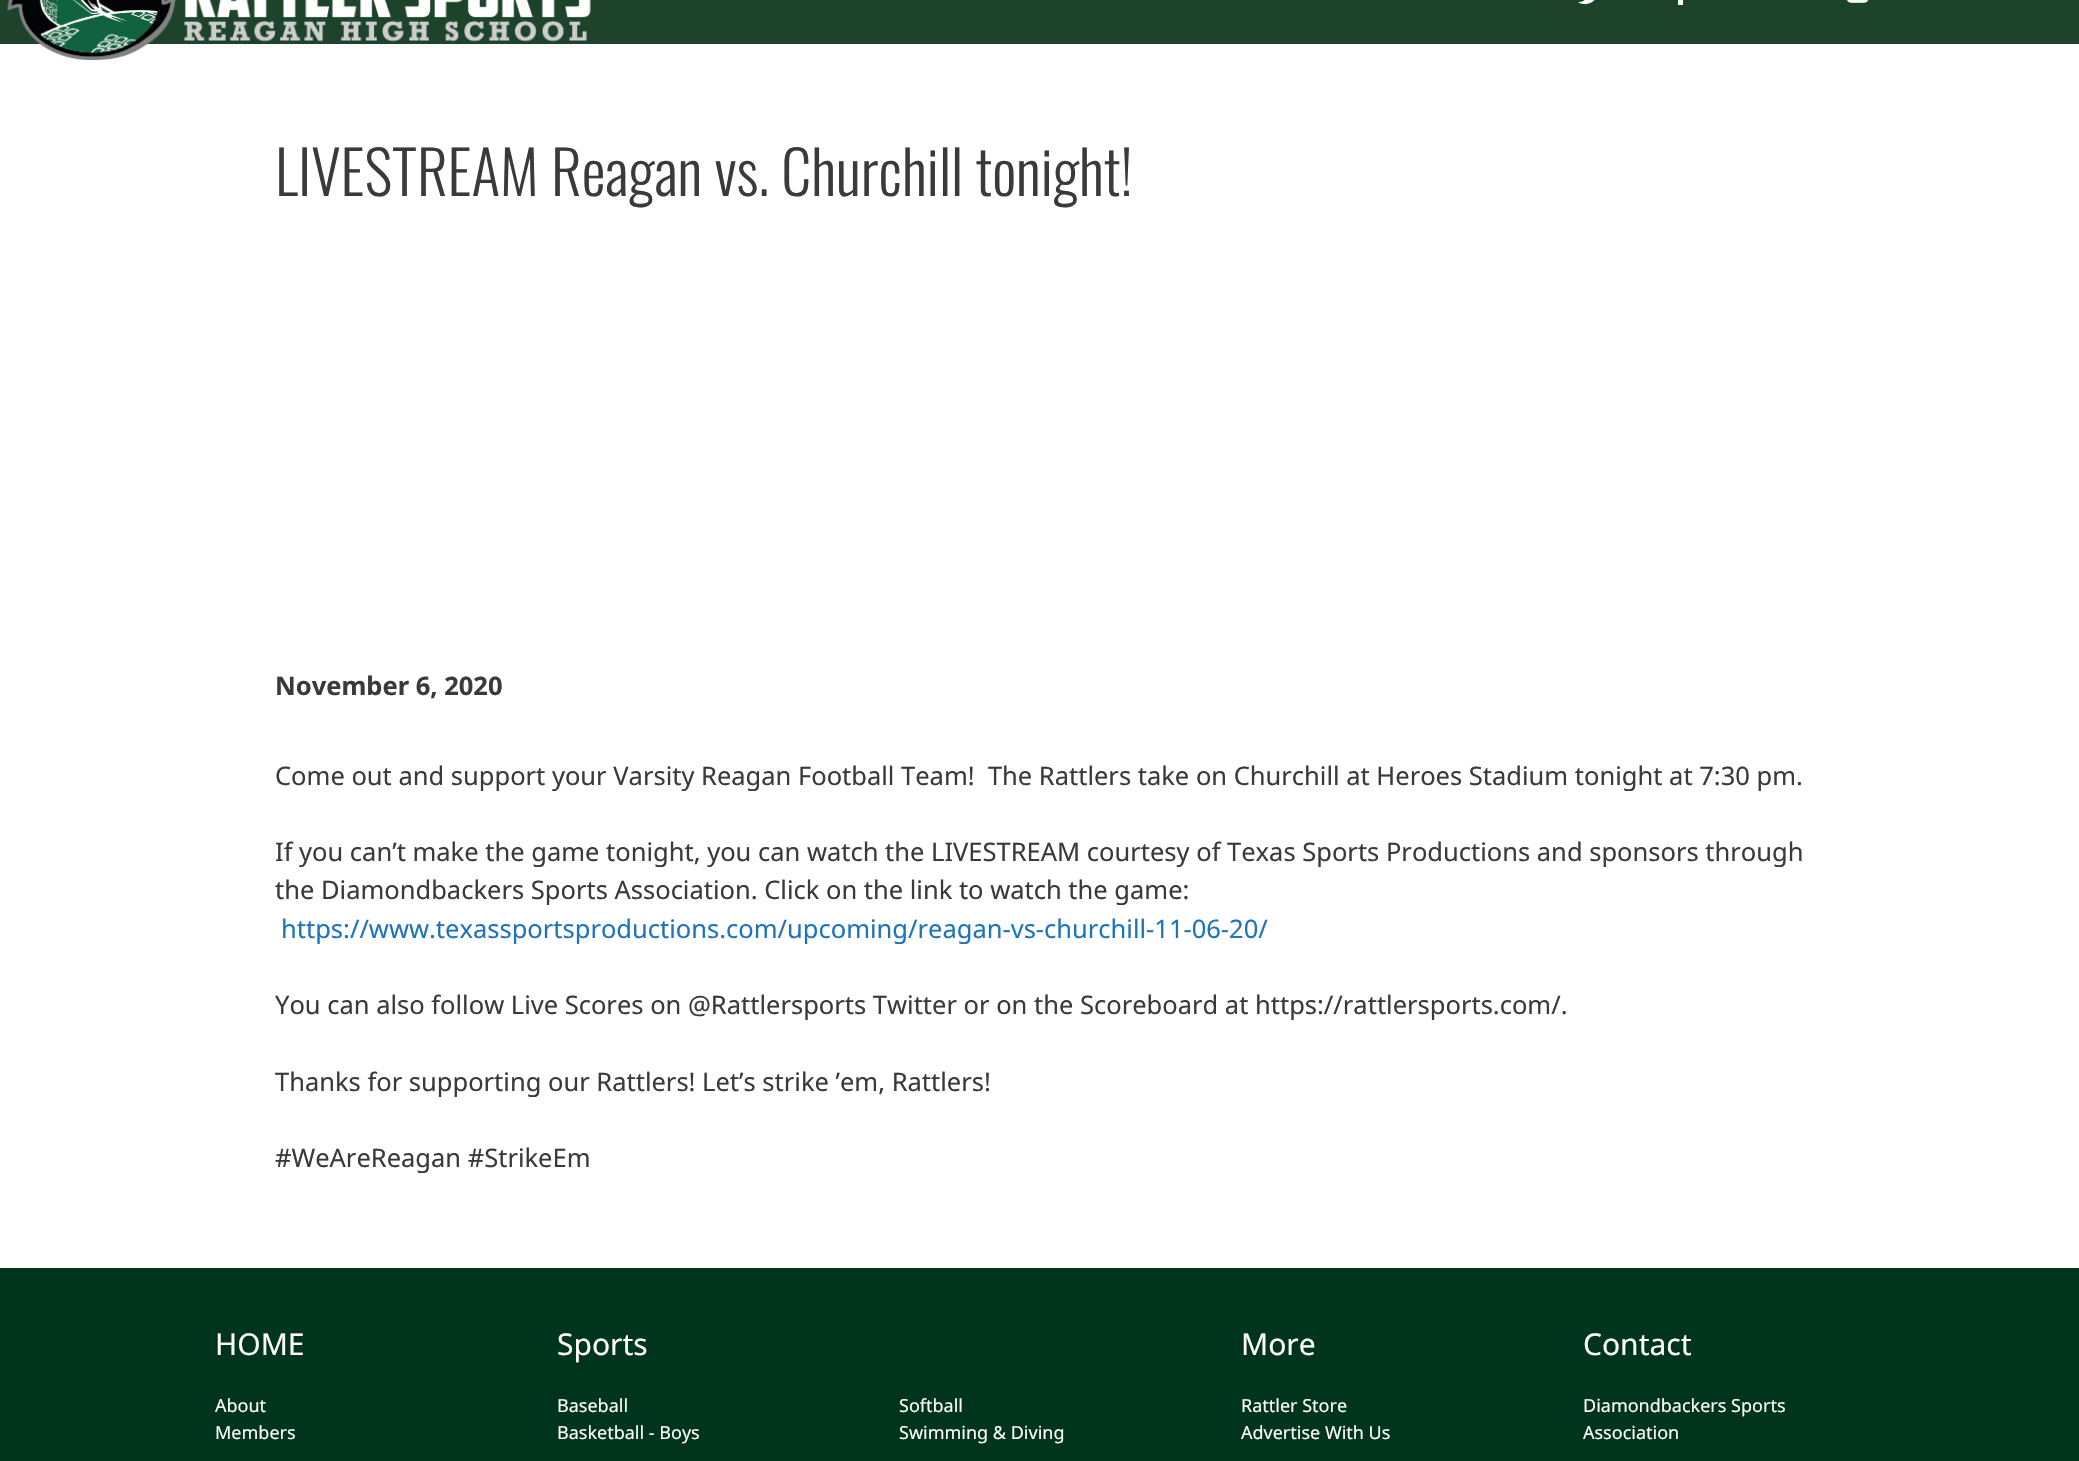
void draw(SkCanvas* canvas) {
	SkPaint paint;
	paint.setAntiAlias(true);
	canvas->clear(0xffffffff);
	paint.setColor(0xff1d432a);
	canvas->drawRect(SkRect::MakeXYWH(0, 0, 2079, 44), paint);
	canvas->drawImageRect(SkImages::DeferredFromEncodedData(SkData::MakeFromFileName("img1.png")), SkRect::MakeXYWH(7, 0, 584, 61), SkSamplingOptions());
	canvas->drawImageRect(SkImages::DeferredFromEncodedData(SkData::MakeFromFileName("img2.png")), SkRect::MakeXYWH(1578, 0, 17, 5), SkSamplingOptions());
	paint.setColor(0xffffffff);
	canvas->drawRect(SkRect::MakeXYWH(1678, 0, 5, 5), paint);
	canvas->drawImageRect(SkImages::DeferredFromEncodedData(SkData::MakeFromFileName("img3.png")), SkRect::MakeXYWH(1847, 0, 22, 3), SkSamplingOptions());
	SkFont f1(fontMgr->matchFamilyStyle("Oswald", SkFontStyle(300, SkFontStyle::kNormal_Width, SkFontStyle::kUpright_Slant)), 60);
	f1.setSubpixel(true);
	paint.setColor(0xff3a3a3a);
	canvas->drawString("LIVESTREAM Reagan vs. Churchill tonight!", 275, 196, f1, paint);
	SkFont f2(fontMgr->matchFamilyStyle("Noto Sans", SkFontStyle::Bold()), 25.5);
	f2.setSubpixel(true);
	canvas->drawString("November 6, 2020", 275, 695, f2, paint);
	SkFont f3(fontMgr->matchFamilyStyle("Noto Sans", SkFontStyle::Normal()), 25.5);
	f3.setSubpixel(true);
	canvas->drawString("Come out and support your Varsity Reagan Football Team!  The Rattlers take on Churchill at Heroes Stadium tonight at 7:30 pm.", 275, 785, f3, paint);
	canvas->drawString("If you can’t make the game tonight, you can watch the LIVESTREAM courtesy of Texas Sports Productions and sponsors through", 275, 861, f3, paint);
	canvas->drawString("the Diamondbackers Sports Association. Click on the link to watch the game:", 275, 899, f3, paint);
	paint.setColor(0xff1e73be);
	canvas->drawString("https://www.texassportsproductions.com/upcoming/reagan-vs-churchill-11-06-20/", 281, 938, f3, paint);
	paint.setColor(0xff3a3a3a);
	canvas->drawString("You can also follow Live Scores on @Rattlersports Twitter or on the Scoreboard at https://rattlersports.com/.", 275, 1014, f3, paint);
	canvas->drawString("Thanks for supporting our Rattlers! Let’s strike ’em, Rattlers!", 275, 1091, f3, paint);
	canvas->drawString("#WeAreReagan #StrikeEm", 275, 1167, f3, paint);
	paint.setColor(0xff00341c);
	canvas->drawRect(SkRect::MakeXYWH(0, 1268, 2079, 193), paint);
	SkFont f4(fontMgr->matchFamilyStyle("Noto Sans", SkFontStyle::Normal()), 30);
	f4.setSubpixel(true);
	paint.setColor(0xffffffff);
	canvas->drawString("HOME", 215, 1355, f4, paint);
	SkFont f5(fontMgr->matchFamilyStyle("Noto Sans", SkFontStyle::Normal()), 18);
	f5.setSubpixel(true);
	canvas->drawString("About", 215, 1412, f5, paint);
	canvas->drawString("Members", 215, 1439, f5, paint);
	canvas->drawString("Sports", 557, 1355, f4, paint);
	canvas->drawString("Baseball", 557, 1412, f5, paint);
	canvas->drawString("Basketball - Boys", 557, 1439, f5, paint);
	canvas->drawString("Softball", 899, 1412, f5, paint);
	canvas->drawString("Swimming & Diving", 899, 1439, f5, paint);
	canvas->drawString("More", 1241, 1355, f4, paint);
	canvas->drawString("Rattler Store", 1241, 1412, f5, paint);
	canvas->drawString("Advertise With Us", 1241, 1439, f5, paint);
	canvas->drawString("Contact", 1583, 1355, f4, paint);
	canvas->drawString("Diamondbackers Sports", 1583, 1412, f5, paint);
	canvas->drawString("Association", 1583, 1439, f5, paint);
}
